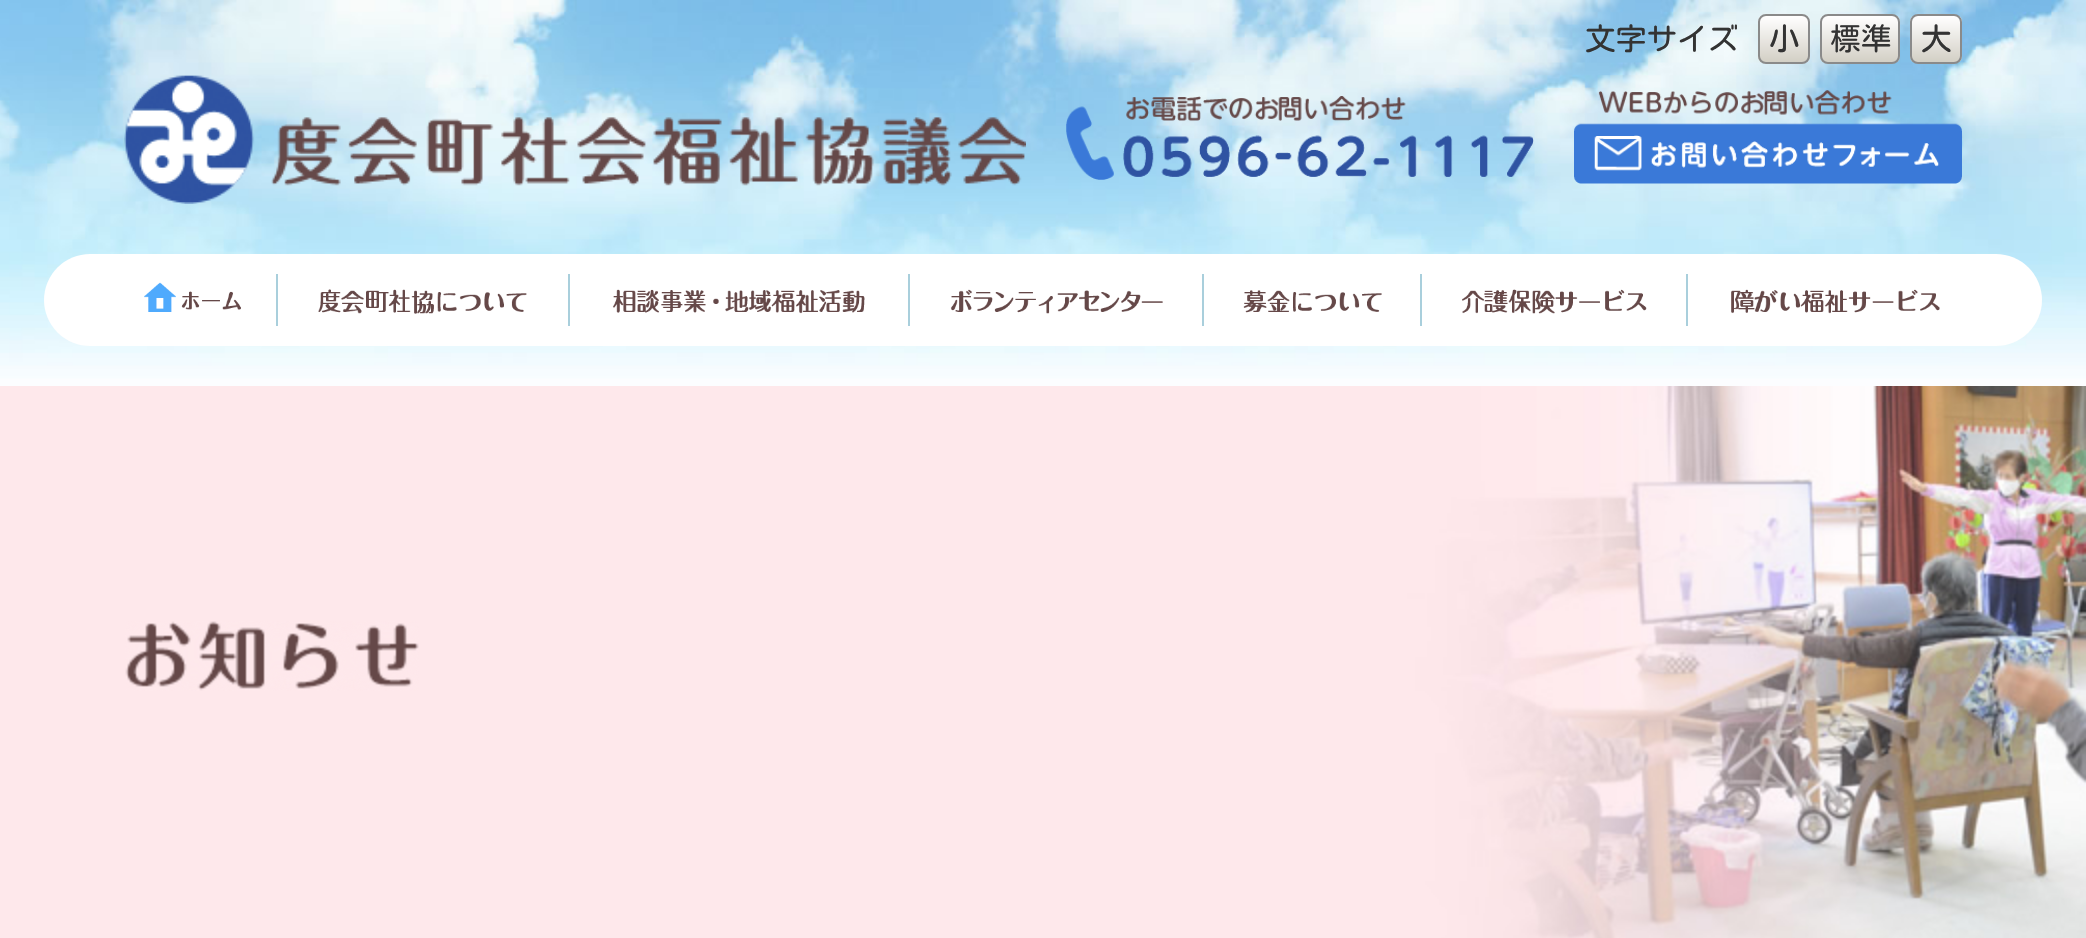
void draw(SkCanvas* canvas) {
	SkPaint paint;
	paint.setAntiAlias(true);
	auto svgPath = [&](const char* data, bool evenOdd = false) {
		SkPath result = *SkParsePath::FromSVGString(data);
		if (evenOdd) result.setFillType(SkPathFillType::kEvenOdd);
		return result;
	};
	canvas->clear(0xffffffff);
	canvas->drawImageRect(SkImages::DeferredFromEncodedData(SkData::MakeFromFileName("img1.png")), SkRect::MakeXYWH(0, 0, 2086, 386), SkSamplingOptions());
	SkFont f1(fontMgr->matchFamilyStyle("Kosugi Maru", SkFontStyle::Normal()), 30.75);
	f1.setSubpixel(true);
	paint.setColor(0xff333333);
	canvas->drawString("文字サイズ", 1585, 50, f1, paint);
	canvas->save();
	canvas->clipPath(svgPath("M1766 14H1802C1806.5 14 1810 17.5 1810 22V56C1810 60.5 1806.5 64 1802 64H1766C1761.5 64 1758 60.5 1758 56V22C1758 17.5 1761.5 14 1766 14Z"), true);
	{
		const SkColor colors[] = {0xffffffff, 0xffd3cfc5};
		const float stops[] = {0, 1};
		const SkPoint ends[] = {{1784, 16}, {1784, 62}};
		paint.setShader(SkGradientShader::MakeLinear(ends, colors, stops, 2, SkTileMode::kClamp));
		paint.setAlpha(255);
	}
	canvas->drawRect(SkRect::MakeXYWH(1758, 16, 52, 46), paint);
	canvas->restore();
	paint.setStroke(true);
	paint.setStrokeWidth(2);
	paint.setShader(nullptr);
	paint.setColor(0xff8a8a8a);
	canvas->drawRoundRect(SkRect::MakeXYWH(1759, 15, 50, 48), 7, 7, paint);
	paint.setStroke(false);
	paint.setColor(0xff333333);
	canvas->drawString("小", 1769, 50, f1, paint);
	canvas->save();
	canvas->clipPath(svgPath("M1828 14H1892C1896.5 14 1900 17.5 1900 22V56C1900 60.5 1896.5 64 1892 64H1828C1823.5 64 1820 60.5 1820 56V22C1820 17.5 1823.5 14 1828 14Z"), true);
	{
		const SkColor colors[] = {0xffffffff, 0xffd3cfc5};
		const float stops[] = {0, 1};
		const SkPoint ends[] = {{1860, 16}, {1860, 62}};
		paint.setShader(SkGradientShader::MakeLinear(ends, colors, stops, 2, SkTileMode::kClamp));
		paint.setAlpha(255);
	}
	canvas->drawRect(SkRect::MakeXYWH(1820, 16, 80, 46), paint);
	canvas->restore();
	paint.setStroke(true);
	paint.setShader(nullptr);
	paint.setColor(0xff8a8a8a);
	canvas->drawRoundRect(SkRect::MakeXYWH(1821, 15, 78, 48), 7, 7, paint);
	paint.setStroke(false);
	paint.setColor(0xff333333);
	canvas->drawString("標準", 1830, 50, f1, paint);
	canvas->save();
	canvas->clipPath(svgPath("M1918 14H1954C1958.5 14 1962 17.5 1962 22V56C1962 60.5 1958.5 64 1954 64H1918C1913.5 64 1910 60.5 1910 56V22C1910 17.5 1913.5 14 1918 14Z"), true);
	{
		const SkColor colors[] = {0xffffffff, 0xffd3cfc5};
		const float stops[] = {0, 1};
		const SkPoint ends[] = {{1936, 16}, {1936, 62}};
		paint.setShader(SkGradientShader::MakeLinear(ends, colors, stops, 2, SkTileMode::kClamp));
		paint.setAlpha(255);
	}
	canvas->drawRect(SkRect::MakeXYWH(1910, 16, 52, 46), paint);
	canvas->restore();
	paint.setStroke(true);
	paint.setShader(nullptr);
	paint.setColor(0xff8a8a8a);
	canvas->drawRoundRect(SkRect::MakeXYWH(1911, 15, 50, 48), 7, 7, paint);
	paint.setStroke(false);
	paint.setColor(0xff333333);
	canvas->drawString("大", 1921, 50, f1, paint);
	canvas->drawImageRect(SkImages::DeferredFromEncodedData(SkData::MakeFromFileName("img2.png")), SkRect::MakeXYWH(124, 75, 902, 129), SkSamplingOptions());
	canvas->drawImageRect(SkImages::DeferredFromEncodedData(SkData::MakeFromFileName("img3.png")), SkRect::MakeXYWH(1066, 96, 468, 84), SkSamplingOptions());
	canvas->drawImageRect(SkImages::DeferredFromEncodedData(SkData::MakeFromFileName("img4.png")), SkRect::MakeXYWH(1574, 90, 388, 94), SkSamplingOptions());
	paint.setColor(0xffffffff);
	canvas->drawRoundRect(SkRect::MakeXYWH(44, 254, 1998, 92), 46, 46, paint);
	canvas->drawImageRect(SkImages::DeferredFromEncodedData(SkData::MakeFromFileName("img5.png")), SkRect::MakeXYWH(144, 282, 97, 30), SkSamplingOptions());
	paint.setColor(0xffa9cfdc);
	canvas->drawRect(SkRect::MakeXYWH(276, 274, 2, 52), paint);
	canvas->drawImageRect(SkImages::DeferredFromEncodedData(SkData::MakeFromFileName("img6.png")), SkRect::MakeXYWH(318, 289, 209, 25), SkSamplingOptions());
	canvas->drawRect(SkRect::MakeXYWH(568, 274, 2, 52), paint);
	canvas->drawImageRect(SkImages::DeferredFromEncodedData(SkData::MakeFromFileName("img7.png")), SkRect::MakeXYWH(612, 289, 253, 25), SkSamplingOptions());
	canvas->drawRect(SkRect::MakeXYWH(908, 274, 2, 52), paint);
	canvas->drawImageRect(SkImages::DeferredFromEncodedData(SkData::MakeFromFileName("img8.png")), SkRect::MakeXYWH(950, 289, 213, 25), SkSamplingOptions());
	canvas->drawRect(SkRect::MakeXYWH(1202, 274, 2, 52), paint);
	canvas->drawImageRect(SkImages::DeferredFromEncodedData(SkData::MakeFromFileName("img9.png")), SkRect::MakeXYWH(1243, 290, 139, 23), SkSamplingOptions());
	canvas->drawRect(SkRect::MakeXYWH(1420, 274, 2, 52), paint);
	canvas->drawImageRect(SkImages::DeferredFromEncodedData(SkData::MakeFromFileName("img10.png")), SkRect::MakeXYWH(1462, 289, 185, 25), SkSamplingOptions());
	canvas->drawRect(SkRect::MakeXYWH(1686, 274, 2, 52), paint);
	canvas->drawImageRect(SkImages::DeferredFromEncodedData(SkData::MakeFromFileName("img11.png")), SkRect::MakeXYWH(1731, 289, 209, 25), SkSamplingOptions());
	canvas->drawImageRect(SkImages::DeferredFromEncodedData(SkData::MakeFromFileName("img12.png")), SkRect::MakeXYWH(0, 386, 2086, 552), SkSamplingOptions());
	canvas->drawImageRect(SkImages::DeferredFromEncodedData(SkData::MakeFromFileName("img13.png")), SkRect::MakeXYWH(125, 621, 294, 70), SkSamplingOptions());
}
